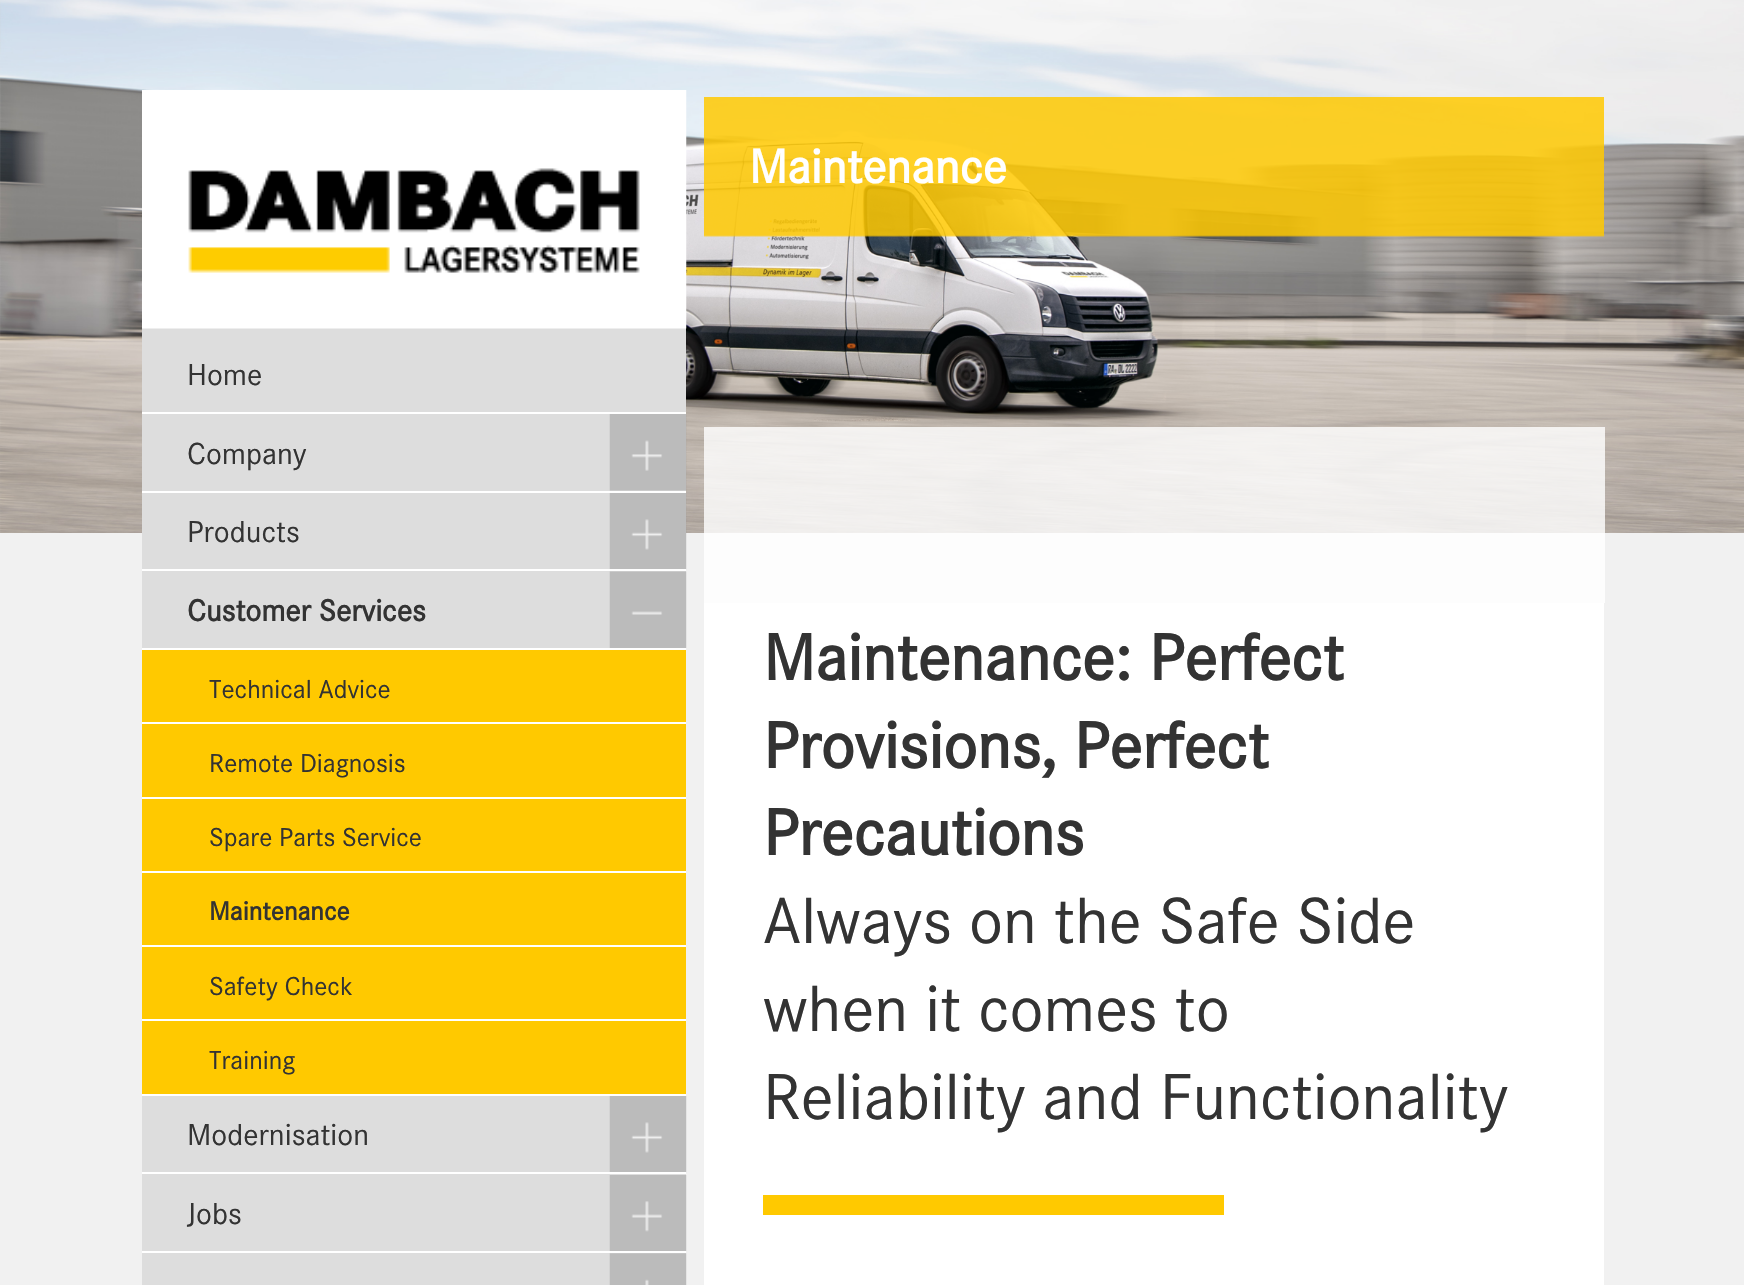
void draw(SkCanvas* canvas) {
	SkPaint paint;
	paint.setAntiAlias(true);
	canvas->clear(0xfff1f1f1);
	canvas->drawImageRect(SkImages::DeferredFromEncodedData(SkData::MakeFromFileName("img1.png")), SkRect::MakeXYWH(0, 0, 1744, 533), SkSamplingOptions());
	canvas->drawImageRect(SkImages::DeferredFromEncodedData(SkData::MakeFromFileName("img2.png")), SkRect::MakeXYWH(704, 97, 900, 140), SkSamplingOptions());
	SkFont f1(fontMgr->matchFamilyStyle("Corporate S", SkFontStyle::Bold()), 49.5);
	f1.setSubpixel(true);
	paint.setColor(0xffffffff);
	canvas->drawString("Maintenance", 749, 183, f1, paint);
	paint.setColor(0xffdddddd);
	canvas->drawRect(SkRect::MakeXYWH(142, 328, 544, 957), paint);
	canvas->drawImageRect(SkImages::DeferredFromEncodedData(SkData::MakeFromFileName("img3.png")), SkRect::MakeXYWH(142, 90, 545, 239), SkSamplingOptions());
	paint.setColor(0xffffffff);
	canvas->drawRect(SkRect::MakeXYWH(142, 412, 544, 2), paint);
	SkFont f2(fontMgr->matchFamilyStyle("Corporate S", SkFontStyle::Normal()), 31.5);
	f2.setSubpixel(true);
	paint.setColor(0xff333333);
	canvas->drawString("Home", 187, 385, f2, paint);
	canvas->drawImageRect(SkImages::DeferredFromEncodedData(SkData::MakeFromFileName("img4.png")), SkRect::MakeXYWH(609, 414, 78, 77), SkSamplingOptions());
	paint.setColor(0xffffffff);
	canvas->drawRect(SkRect::MakeXYWH(142, 491, 544, 2), paint);
	paint.setColor(0xff333333);
	canvas->drawString("Company", 187, 464, f2, paint);
	canvas->drawImageRect(SkImages::DeferredFromEncodedData(SkData::MakeFromFileName("img5.png")), SkRect::MakeXYWH(609, 493, 78, 77), SkSamplingOptions());
	paint.setColor(0xffffffff);
	canvas->drawRect(SkRect::MakeXYWH(142, 569, 544, 2), paint);
	paint.setColor(0xff333333);
	canvas->drawString("Products", 187, 542, f2, paint);
	canvas->drawImageRect(SkImages::DeferredFromEncodedData(SkData::MakeFromFileName("img6.png")), SkRect::MakeXYWH(609, 571, 78, 77), SkSamplingOptions());
	paint.setColor(0xffffffff);
	canvas->drawRect(SkRect::MakeXYWH(142, 648, 544, 2), paint);
	SkFont f3(fontMgr->matchFamilyStyle("Corporate S", SkFontStyle::Bold()), 31.5);
	f3.setSubpixel(true);
	paint.setColor(0xff333333);
	canvas->drawString("Customer Services", 187, 621, f3, paint);
	paint.setColor(0xffffc900);
	canvas->drawRect(SkRect::MakeXYWH(142, 650, 544, 147), paint);
	paint.setColor(0xffffffff);
	canvas->drawRect(SkRect::MakeXYWH(142, 722, 544, 2), paint);
	SkFont f4(fontMgr->matchFamilyStyle("Corporate S", SkFontStyle::Normal()), 27);
	f4.setSubpixel(true);
	paint.setColor(0xff333333);
	canvas->drawString("Technical Advice", 209, 698, f4, paint);
	paint.setColor(0xffffffff);
	canvas->drawRect(SkRect::MakeXYWH(142, 797, 544, 2), paint);
	paint.setColor(0xff333333);
	canvas->drawString("Remote Diagnosis", 209, 772, f4, paint);
	paint.setColor(0xffffc900);
	canvas->drawRect(SkRect::MakeXYWH(142, 799, 544, 72), paint);
	paint.setColor(0xffffffff);
	canvas->drawRect(SkRect::MakeXYWH(142, 871, 544, 2), paint);
	paint.setColor(0xff333333);
	canvas->drawString("Spare Parts Service", 209, 846, f4, paint);
	paint.setColor(0xffffc900);
	canvas->drawRect(SkRect::MakeXYWH(142, 873, 544, 72), paint);
	paint.setColor(0xffffffff);
	canvas->drawRect(SkRect::MakeXYWH(142, 945, 544, 2), paint);
	SkFont f5(fontMgr->matchFamilyStyle("Corporate S", SkFontStyle::Bold()), 27);
	f5.setSubpixel(true);
	paint.setColor(0xff333333);
	canvas->drawString("Maintenance", 209, 920, f5, paint);
	paint.setColor(0xffffc900);
	canvas->drawRect(SkRect::MakeXYWH(142, 947, 544, 147), paint);
	paint.setColor(0xffffffff);
	canvas->drawRect(SkRect::MakeXYWH(142, 1019, 544, 2), paint);
	paint.setColor(0xff333333);
	canvas->drawString("Safety Check", 209, 995, f4, paint);
	paint.setColor(0xffffffff);
	canvas->drawRect(SkRect::MakeXYWH(142, 1094, 544, 2), paint);
	paint.setColor(0xff333333);
	canvas->drawString("Training", 209, 1069, f4, paint);
	canvas->drawImageRect(SkImages::DeferredFromEncodedData(SkData::MakeFromFileName("img7.png")), SkRect::MakeXYWH(609, 1096, 78, 77), SkSamplingOptions());
	paint.setColor(0xffffffff);
	canvas->drawRect(SkRect::MakeXYWH(142, 1172, 544, 2), paint);
	paint.setColor(0xff333333);
	canvas->drawString("Modernisation", 187, 1145, f2, paint);
	canvas->drawImageRect(SkImages::DeferredFromEncodedData(SkData::MakeFromFileName("img8.png")), SkRect::MakeXYWH(609, 1175, 78, 76), SkSamplingOptions());
	paint.setColor(0xffffffff);
	canvas->drawRect(SkRect::MakeXYWH(142, 1251, 544, 2), paint);
	paint.setColor(0xff333333);
	canvas->drawString("Jobs", 187, 1224, f2, paint);
	canvas->drawImageRect(SkImages::DeferredFromEncodedData(SkData::MakeFromFileName("img9.png")), SkRect::MakeXYWH(609, 1253, 78, 32), SkSamplingOptions());
	paint.setColor(0xccffffff);
	canvas->drawRect(SkRect::MakeXYWH(704, 427, 901, 176), paint);
	paint.setColor(0xffffffff);
	canvas->drawRect(SkRect::MakeXYWH(704, 603, 900, 682), paint);
	SkFont f6(fontMgr->matchFamilyStyle("Corporate S", SkFontStyle::Bold()), 67.5);
	f6.setSubpixel(true);
	paint.setColor(0xff333333);
	canvas->drawString("Maintenance: Perfect", 763, 680, f6, paint);
	canvas->drawString("Provisions, Perfect", 763, 768, f6, paint);
	canvas->drawString("Precautions", 763, 855, f6, paint);
	SkFont f7(fontMgr->matchFamilyStyle("Corporate S", SkFontStyle::Normal()), 67.5);
	f7.setSubpixel(true);
	canvas->drawString("Always on the Safe Side", 763, 943, f7, paint);
	canvas->drawString("when it comes to", 763, 1031, f7, paint);
	canvas->drawString("Reliability and Functionality", 763, 1119, f7, paint);
	paint.setColor(0xffffc900);
	canvas->drawRect(SkRect::MakeXYWH(763, 1195, 461, 20), paint);
}
